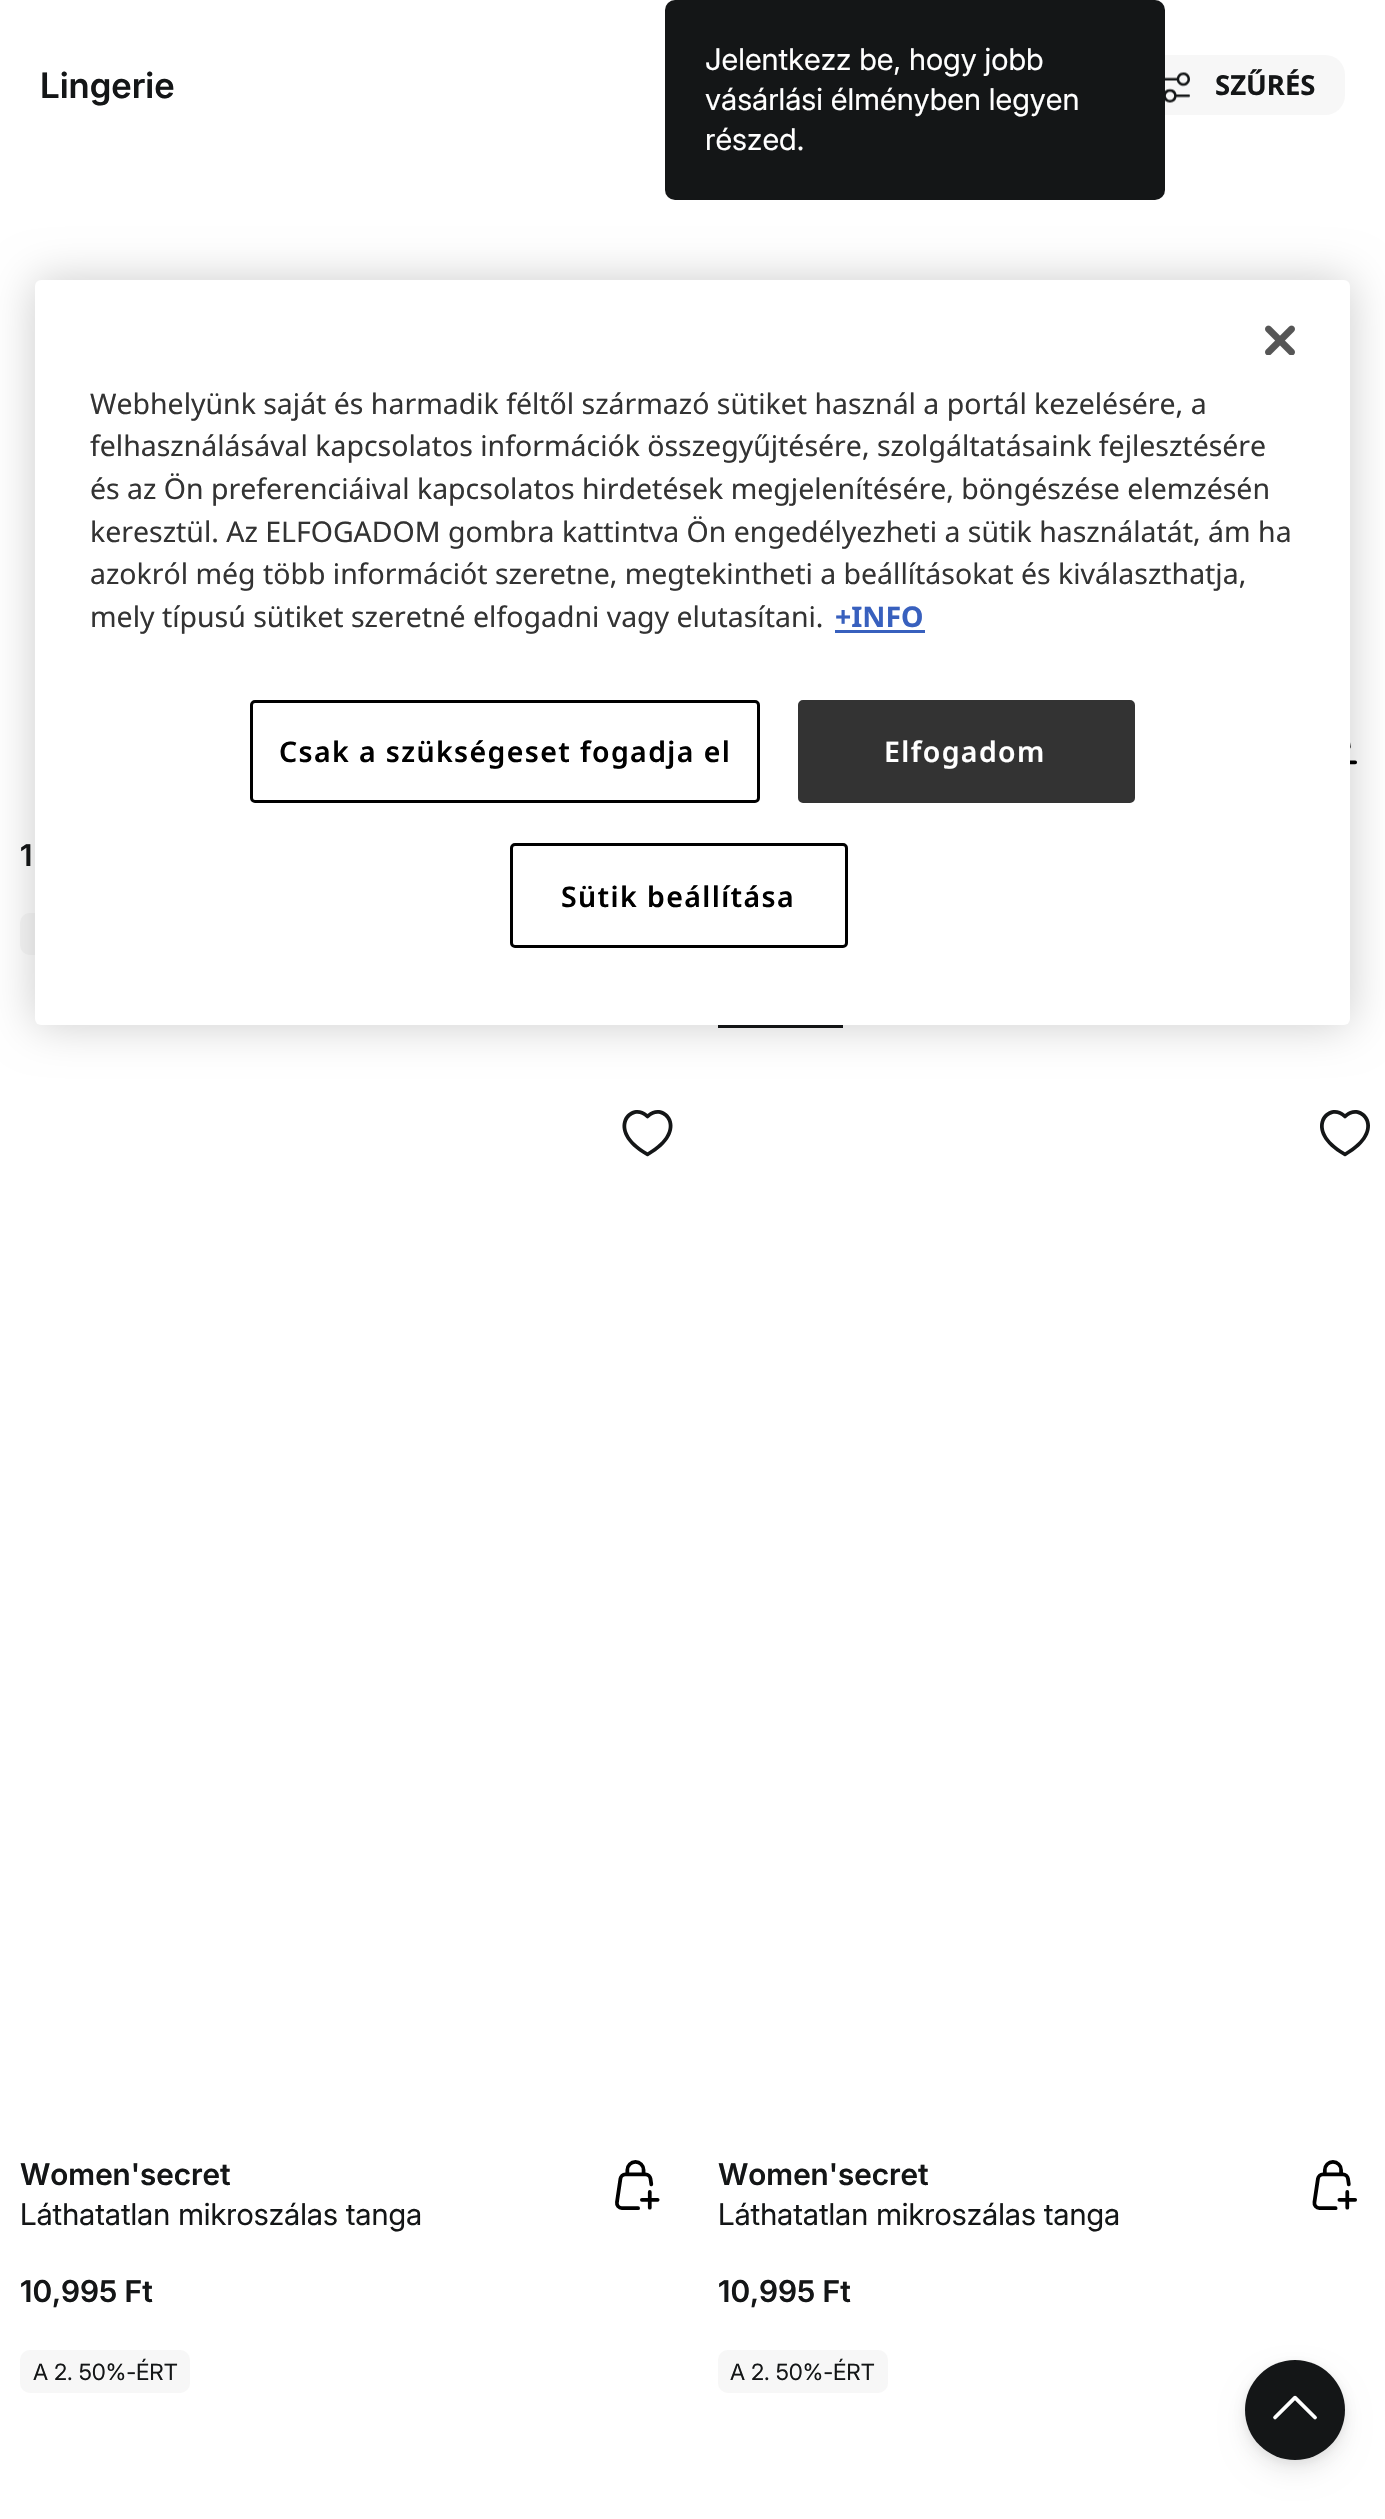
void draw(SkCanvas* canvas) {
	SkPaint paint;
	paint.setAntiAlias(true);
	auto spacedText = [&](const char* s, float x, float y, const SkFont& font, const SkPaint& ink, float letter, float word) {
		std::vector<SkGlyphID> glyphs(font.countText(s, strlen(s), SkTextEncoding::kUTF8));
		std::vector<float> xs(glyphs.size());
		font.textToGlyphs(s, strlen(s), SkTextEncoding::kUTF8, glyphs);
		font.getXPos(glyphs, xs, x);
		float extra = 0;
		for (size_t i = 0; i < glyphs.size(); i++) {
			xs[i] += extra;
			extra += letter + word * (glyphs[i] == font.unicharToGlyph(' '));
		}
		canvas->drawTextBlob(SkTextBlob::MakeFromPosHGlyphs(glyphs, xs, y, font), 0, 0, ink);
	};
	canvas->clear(0xffffffff);
	paint.setColor(0xfff7f7f7);
	canvas->drawRoundRect(SkRect::MakeXYWH(1135, 55, 210, 60), 20, 20, paint);
	paint.setColor(0xff141617);
	canvas->drawRoundRect(SkRect::MakeXYWH(665, 0, 500, 200), 10, 10, paint);
	SkFont f1(fontMgr->matchFamilyStyle("Inter", SkFontStyle::Normal()), 30);
	f1.setSubpixel(true);
	paint.setColor(0xffffffff);
	canvas->drawString("Jelentkezz be, hogy jobb", 705, 70, f1, paint);
	canvas->drawString("vásárlási élményben legyen", 705, 110, f1, paint);
	canvas->drawString("részed.", 705, 150, f1, paint);
	SkFont f2(fontMgr->matchFamilyStyle("Inter", SkFontStyle(600, SkFontStyle::kNormal_Width, SkFontStyle::kUpright_Slant)), 35);
	f2.setSubpixel(true);
	paint.setColor(0xff141617);
	canvas->drawString("Lingerie", 40, 98, f2, paint);
	canvas->drawImageRect(SkImages::DeferredFromEncodedData(SkData::MakeFromFileName("img1.png")), SkRect::MakeXYWH(1165, 72, 25, 31), SkSamplingOptions());
	SkFont f3(fontMgr->matchFamilyStyle("Noto Sans", SkFontStyle::Bold()), 27.5);
	f3.setSubpixel(true);
	canvas->drawString("SZŰRÉS", 1215, 95, f3, paint);
	SkFont f4(fontMgr->matchFamilyStyle("Inter", SkFontStyle(600, SkFontStyle::kNormal_Width, SkFontStyle::kUpright_Slant)), 30);
	f4.setSubpixel(true);
	canvas->drawString("1", 20, 866, f4, paint);
	paint.setColor(0xfff7f7f7);
	canvas->drawRoundRect(SkRect::MakeXYWH(20, 913, 170, 42), 10, 10, paint);
	canvas->drawImageRect(SkImages::DeferredFromEncodedData(SkData::MakeFromFileName("img2.png")), SkRect::MakeXYWH(1350, 742, 7, 23), SkSamplingOptions());
	paint.setColor(0xff141617);
	canvas->drawRect(SkRect::MakeXYWH(718, 1025, 125, 3), paint);
	canvas->drawImageRect(SkImages::DeferredFromEncodedData(SkData::MakeFromFileName("img3.png")), SkRect::MakeXYWH(622, 1110, 51, 47), SkSamplingOptions());
	canvas->drawString("Women'secret", 20, 2185, f4, paint);
	canvas->drawString("Láthatatlan mikroszálas tanga", 20, 2225, f1, paint);
	canvas->drawImageRect(SkImages::DeferredFromEncodedData(SkData::MakeFromFileName("img4.png")), SkRect::MakeXYWH(615, 2160, 45, 50), SkSamplingOptions());
	canvas->drawString("10,995 Ft", 20, 2302, f4, paint);
	paint.setColor(0xfff7f7f7);
	canvas->drawRoundRect(SkRect::MakeXYWH(20, 2350, 170, 43), 10, 10, paint);
	SkFont f5(fontMgr->matchFamilyStyle("Inter", SkFontStyle::Normal()), 22.5);
	f5.setSubpixel(true);
	paint.setColor(0xff141617);
	canvas->drawString("A 2. 50%-ÉRT", 33, 2380, f5, paint);
	canvas->drawImageRect(SkImages::DeferredFromEncodedData(SkData::MakeFromFileName("img5.png")), SkRect::MakeXYWH(1320, 1110, 50, 47), SkSamplingOptions());
	canvas->drawString("Women'secret", 718, 2185, f4, paint);
	canvas->drawString("Láthatatlan mikroszálas tanga", 718, 2225, f1, paint);
	canvas->drawImageRect(SkImages::DeferredFromEncodedData(SkData::MakeFromFileName("img6.png")), SkRect::MakeXYWH(1312, 2160, 45, 50), SkSamplingOptions());
	canvas->drawString("10,995 Ft", 718, 2302, f4, paint);
	paint.setColor(0xfff7f7f7);
	canvas->drawRoundRect(SkRect::MakeXYWH(718, 2350, 170, 43), 10, 10, paint);
	paint.setColor(0xff141617);
	canvas->drawString("A 2. 50%-ÉRT", 730, 2380, f5, paint);
	paint.setColor(0x14000000);
	paint.setMaskFilter(SkMaskFilter::MakeBlur(kNormal_SkBlurStyle, 5));
	canvas->drawRoundRect(SkRect::MakeXYWH(1245, 2363, 100, 100), 50, 50, paint);
	paint.setMaskFilter(nullptr);
	paint.setColor(0x12000000);
	paint.setMaskFilter(SkMaskFilter::MakeBlur(kNormal_SkBlurStyle, 12.5));
	canvas->drawRoundRect(SkRect::MakeXYWH(1245, 2373, 100, 100), 50, 50, paint);
	paint.setMaskFilter(nullptr);
	paint.setColor(0xff141617);
	canvas->drawCircle(1295, 2410, 50, paint);
	canvas->drawImageRect(SkImages::DeferredFromEncodedData(SkData::MakeFromFileName("img7.png")), SkRect::MakeXYWH(1273, 2395, 44, 25), SkSamplingOptions());
	paint.setColor(0x33000000);
	paint.setMaskFilter(SkMaskFilter::MakeBlur(kNormal_SkBlurStyle, 22.5));
	canvas->drawRoundRect(SkRect::MakeXYWH(35, 280, 1315, 745), 6, 6, paint);
	paint.setMaskFilter(nullptr);
	paint.setColor(0xffffffff);
	canvas->drawRoundRect(SkRect::MakeXYWH(35, 280, 1315, 745), 6, 6, paint);
	canvas->drawImageRect(SkImages::DeferredFromEncodedData(SkData::MakeFromFileName("img8.png")), SkRect::MakeXYWH(1265, 325, 30, 30), SkSamplingOptions());
	SkFont f6(fontMgr->matchFamilyStyle("Noto Sans", SkFontStyle::Normal()), 28.45);
	f6.setSubpixel(true);
	paint.setColor(0xff333333);
	canvas->drawString("Webhelyünk saját és harmadik féltől származó sütiket használ a portál kezelésére, a", 90, 414, f6, paint);
	canvas->drawString("felhasználásával kapcsolatos információk összegyűjtésére, szolgáltatásaink fejlesztésére", 90, 456, f6, paint);
	canvas->drawString("és az Ön preferenciáival kapcsolatos hirdetések megjelenítésére, böngészése elemzésén", 90, 499, f6, paint);
	canvas->drawString("keresztül. Az ELFOGADOM gombra kattintva Ön engedélyezheti a sütik használatát, ám ha", 90, 542, f6, paint);
	canvas->drawString("azokról még több információt szeretne, megtekintheti a beállításokat és kiválaszthatja,", 90, 584, f6, paint);
	canvas->drawString("mely típusú sütiket szeretné elfogadni vagy elutasítani.", 90, 627, f6, paint);
	SkFont f7(fontMgr->matchFamilyStyle("Noto Sans", SkFontStyle::Bold()), 28.45);
	f7.setSubpixel(true);
	paint.setColor(0xff3860be);
	canvas->drawString("+INFO", 835, 627, f7, paint);
	canvas->drawRect(SkRect::MakeXYWH(835, 630, 90, 3), paint);
	paint.setStroke(true);
	paint.setStrokeWidth(3);
	paint.setColor(0xff000000);
	canvas->drawRoundRect(SkRect::MakeXYWH(251.5, 701.5, 507, 100), 3.5, 3.5, paint);
	SkFont f8(fontMgr->matchFamilyStyle("Noto Sans", SkFontStyle(600, SkFontStyle::kNormal_Width, SkFontStyle::kUpright_Slant)), 28.45);
	f8.setSubpixel(true);
	paint.setStroke(false);
	spacedText("Csak a szükségeset fogadja el", 279, 762, f8, paint, 1.4, 0);
	paint.setColor(0xff333333);
	canvas->drawRoundRect(SkRect::MakeXYWH(799.5, 701.5, 334, 100), 3.5, 3.5, paint);
	paint.setStroke(true);
	canvas->drawRoundRect(SkRect::MakeXYWH(799.5, 701.5, 334, 100), 3.5, 3.5, paint);
	paint.setStroke(false);
	paint.setColor(0xffffffff);
	spacedText("Elfogadom", 884, 762, f8, paint, 1.4, 0);
	paint.setStroke(true);
	paint.setColor(0xff000000);
	canvas->drawRoundRect(SkRect::MakeXYWH(511.5, 844.5, 335, 102), 3.5, 3.5, paint);
	paint.setStroke(false);
	spacedText("Sütik beállítása", 561, 907, f8, paint, 1.4, 0);
}
